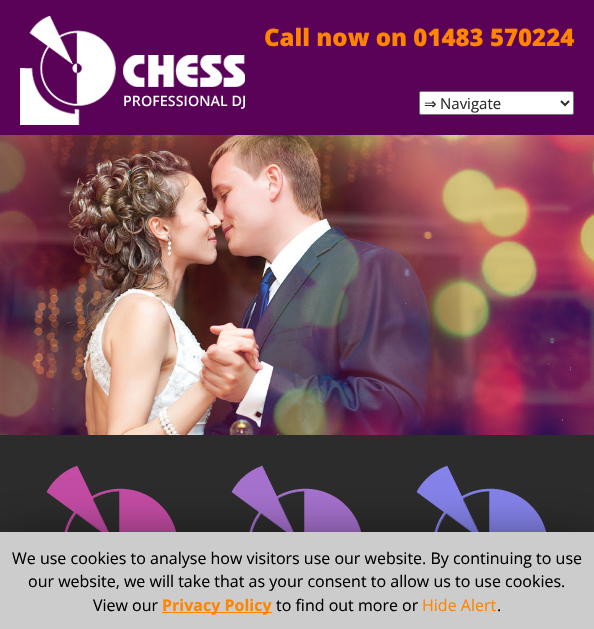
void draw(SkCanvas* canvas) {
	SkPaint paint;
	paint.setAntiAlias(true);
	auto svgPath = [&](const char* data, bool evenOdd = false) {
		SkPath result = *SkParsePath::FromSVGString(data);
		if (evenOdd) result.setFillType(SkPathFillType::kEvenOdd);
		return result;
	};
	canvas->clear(0xff590258);
	canvas->drawImageRect(SkImages::DeferredFromEncodedData(SkData::MakeFromFileName("img1.png")), SkRect::MakeXYWH(20, 16, 225, 109), SkSamplingOptions());
	SkFont f1(fontMgr->matchFamilyStyle("Open Sans", SkFontStyle(800, SkFontStyle::kNormal_Width, SkFontStyle::kUpright_Slant)), 24);
	f1.setSubpixel(true);
	paint.setColor(0xffff8400);
	canvas->drawString("Call now on 01483 570224", 264, 46, f1, paint);
	paint.setColor(0xffffffff);
	canvas->drawRoundRect(SkRect::MakeXYWH(419.5, 91.5, 154, 23), 1.5, 1.5, paint);
	paint.setStroke(true);
	paint.setStrokeWidth(1);
	paint.setColor(0xff767676);
	canvas->drawRoundRect(SkRect::MakeXYWH(419.5, 91.5, 154, 23), 1.5, 1.5, paint);
	paint.setStrokeWidth(2);
	paint.setColor(0xff2c2c2c);
	canvas->drawPath(svgPath("M561 101L565 105L569 101"), paint);
	SkFont f2(fontMgr->matchFamilyStyle("DejaVu Sans", SkFontStyle::Normal()), 15);
	f2.setSubpixel(true);
	paint.setStroke(false);
	canvas->drawString("⇒", 424, 109, f2, paint);
	SkFont f3(fontMgr->matchFamilyStyle("Open Sans", SkFontStyle::Normal()), 15);
	f3.setSubpixel(true);
	canvas->drawString("Navigate", 440, 109, f3, paint);
	canvas->drawImageRect(SkImages::DeferredFromEncodedData(SkData::MakeFromFileName("img2.png")), SkRect::MakeXYWH(0, 135, 594, 300), SkSamplingOptions());
	canvas->drawRect(SkRect::MakeXYWH(0, 435, 594, 97), paint);
	canvas->drawImageRect(SkImages::DeferredFromEncodedData(SkData::MakeFromFileName("img3.png")), SkRect::MakeXYWH(46, 465, 132, 67), SkSamplingOptions());
	canvas->drawImageRect(SkImages::DeferredFromEncodedData(SkData::MakeFromFileName("img4.png")), SkRect::MakeXYWH(231, 465, 132, 67), SkSamplingOptions());
	canvas->drawImageRect(SkImages::DeferredFromEncodedData(SkData::MakeFromFileName("img5.png")), SkRect::MakeXYWH(416, 465, 132, 67), SkSamplingOptions());
	paint.setColor(0x80000000);
	paint.setMaskFilter(SkMaskFilter::MakeBlur(kNormal_SkBlurStyle, 25));
	canvas->drawRect(SkRect::MakeXYWH(0, 537, 594, 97), paint);
	paint.setMaskFilter(nullptr);
	paint.setColor(0xffcccccc);
	canvas->drawRect(SkRect::MakeXYWH(0, 532, 594, 97), paint);
	SkFont f4(fontMgr->matchFamilyStyle("Open Sans", SkFontStyle::Normal()), 16);
	f4.setSubpixel(true);
	paint.setColor(0xff000000);
	canvas->drawString("We use cookies to analyse how visitors use our website. By continuing to use", 12, 564, f4, paint);
	canvas->drawString("our website, we will take that as your consent to allow us to use cookies.", 28, 587, f4, paint);
	canvas->drawString("View our", 93, 611, f4, paint);
	paint.setColor(0xffff8400);
	canvas->drawRect(SkRect::MakeXYWH(162, 612, 110, 1), paint);
	SkFont f5(fontMgr->matchFamilyStyle("Open Sans", SkFontStyle::Bold()), 16);
	f5.setSubpixel(true);
	canvas->drawString("Privacy Policy", 162, 611, f5, paint);
	paint.setColor(0xff000000);
	canvas->drawString("to find out more or", 276, 611, f4, paint);
	paint.setColor(0xffff8400);
	canvas->drawString("Hide Alert", 422, 611, f4, paint);
	paint.setColor(0xff000000);
	canvas->drawString(".", 497, 611, f4, paint);
}
